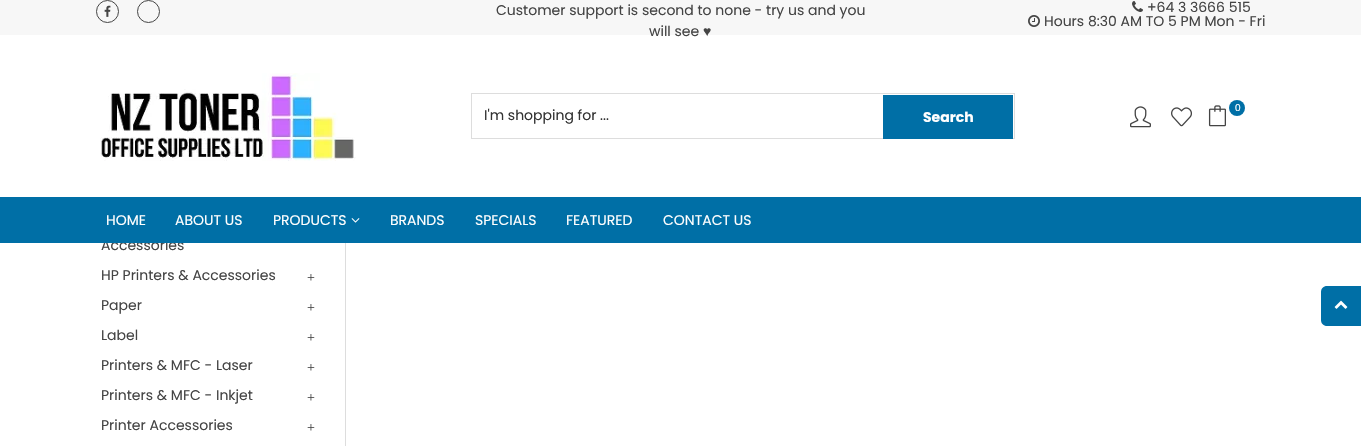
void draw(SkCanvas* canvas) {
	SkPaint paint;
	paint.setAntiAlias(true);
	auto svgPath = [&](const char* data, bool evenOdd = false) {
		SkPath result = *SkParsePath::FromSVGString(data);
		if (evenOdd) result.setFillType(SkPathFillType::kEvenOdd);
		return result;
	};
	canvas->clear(0xffffffff);
	paint.setColor(0xfff7f7f7);
	canvas->drawRect(SkRect::MakeXYWH(0, 0, 1361, 35), paint);
	paint.setStroke(true);
	paint.setStrokeWidth(1);
	paint.setColor(0xff444444);
	canvas->drawCircle(107.5, 11.5, 11, paint);
	canvas->drawImageRect(SkImages::DeferredFromEncodedData(SkData::MakeFromFileName("img1.png")), SkRect::MakeXYWH(104, 5, 7, 12), SkSamplingOptions());
	canvas->drawCircle(148.5, 11.5, 11, paint);
	SkFont f1(fontMgr->matchFamilyStyle("Poppins", SkFontStyle::Normal()), 14);
	f1.setSubpixel(true);
	paint.setStroke(false);
	canvas->drawString("Customer support is second to none - try us and you", 496, 15, f1, paint);
	canvas->drawString("will see", 649, 36, f1, paint);
	SkFont f2(fontMgr->matchFamilyStyle("Liberation Sans", SkFontStyle::Normal()), 14);
	f2.setSubpixel(true);
	canvas->drawString("♥", 703, 36, f2, paint);
	canvas->drawImageRect(SkImages::DeferredFromEncodedData(SkData::MakeFromFileName("img2.png")), SkRect::MakeXYWH(1132, 1, 11, 11), SkSamplingOptions());
	canvas->drawString("+64 3 3666 515", 1147, 12, f1, paint);
	canvas->drawImageRect(SkImages::DeferredFromEncodedData(SkData::MakeFromFileName("img3.png")), SkRect::MakeXYWH(1028, 15, 12, 12), SkSamplingOptions());
	canvas->drawString("Hours 8:30 AM TO 5 PM Mon - Fri", 1044, 26, f1, paint);
	canvas->drawImageRect(SkImages::DeferredFromEncodedData(SkData::MakeFromFileName("img4.png")), SkRect::MakeXYWH(100, 73, 256, 88), SkSamplingOptions());
	paint.setStroke(true);
	paint.setColor(0xffdddddd);
	canvas->drawRect(SkRect::MakeXYWH(471.5, 93.5, 543, 45), paint);
	paint.setStroke(false);
	paint.setColor(0xff333333);
	canvas->drawString("I'm shopping for ...", 484, 120, f1, paint);
	paint.setColor(0xff006fa6);
	canvas->drawRect(SkRect::MakeXYWH(883, 95, 130, 44), paint);
	SkFont f3(fontMgr->matchFamilyStyle("Poppins", SkFontStyle::Bold()), 14);
	f3.setSubpixel(true);
	paint.setColor(0xffffffff);
	canvas->drawString("Search", 923, 122, f3, paint);
	canvas->drawImageRect(SkImages::DeferredFromEncodedData(SkData::MakeFromFileName("img5.png")), SkRect::MakeXYWH(1130, 106, 21, 22), SkSamplingOptions());
	canvas->drawImageRect(SkImages::DeferredFromEncodedData(SkData::MakeFromFileName("img6.png")), SkRect::MakeXYWH(1171, 107, 21, 20), SkSamplingOptions());
	canvas->drawImageRect(SkImages::DeferredFromEncodedData(SkData::MakeFromFileName("img7.png")), SkRect::MakeXYWH(1208, 105, 18, 22), SkSamplingOptions());
	paint.setColor(0xff006fa6);
	canvas->drawCircle(1237, 108, 8, paint);
	SkFont f4(fontMgr->matchFamilyStyle("Liberation Sans", SkFontStyle::Normal()), 10);
	f4.setSubpixel(true);
	paint.setColor(0xffffffff);
	canvas->drawString("0", 1235, 111, f4, paint);
	paint.setColor(0xff444444);
	canvas->drawString("Accessories", 101, 250, f1, paint);
	paint.setColor(0xff006fa6);
	canvas->drawRect(SkRect::MakeXYWH(0, 197, 1361, 46), paint);
	paint.setColor(0xffffffff);
	canvas->drawString("HOME", 106, 225, f1, paint);
	canvas->drawString("ABOUT US", 175, 225, f1, paint);
	canvas->drawString("PRODUCTS", 273, 225, f1, paint);
	canvas->drawImageRect(SkImages::DeferredFromEncodedData(SkData::MakeFromFileName("img8.png")), SkRect::MakeXYWH(351, 218, 9, 5), SkSamplingOptions());
	canvas->drawString("BRANDS", 390, 225, f1, paint);
	canvas->drawString("SPECIALS", 475, 225, f1, paint);
	canvas->drawString("FEATURED", 566, 225, f1, paint);
	canvas->drawString("CONTACT US", 663, 225, f1, paint);
	paint.setColor(0xffdddddd);
	canvas->drawRect(SkRect::MakeXYWH(345, 243, 1, 203), paint);
	paint.setColor(0xff444444);
	canvas->drawString("HP Printers & Accessories", 101, 280, f1, paint);
	SkFont f5(fontMgr->matchFamilyStyle("Liberation Serif", SkFontStyle::Normal()), 14);
	f5.setSubpixel(true);
	canvas->drawString("+", 307, 282, f5, paint);
	canvas->drawString("Paper", 101, 310, f1, paint);
	canvas->drawString("+", 307, 312, f5, paint);
	canvas->drawString("Label", 101, 340, f1, paint);
	canvas->drawString("+", 307, 342, f5, paint);
	canvas->drawString("Printers & MFC - Laser", 101, 370, f1, paint);
	canvas->drawString("+", 307, 372, f5, paint);
	canvas->drawString("Printers & MFC - Inkjet", 101, 400, f1, paint);
	canvas->drawString("+", 307, 402, f5, paint);
	canvas->drawString("Printer Accessories", 101, 430, f1, paint);
	canvas->drawString("+", 307, 432, f5, paint);
	paint.setColor(0xff006fa6);
	canvas->drawPath(svgPath("M1327 286H1361V326H1327C1323.5 326 1321 323.5 1321 320V292C1321 288.5 1323.5 286 1327 286Z"), paint);
	canvas->drawImageRect(SkImages::DeferredFromEncodedData(SkData::MakeFromFileName("img9.png")), SkRect::MakeXYWH(1334, 300, 14, 9), SkSamplingOptions());
}
